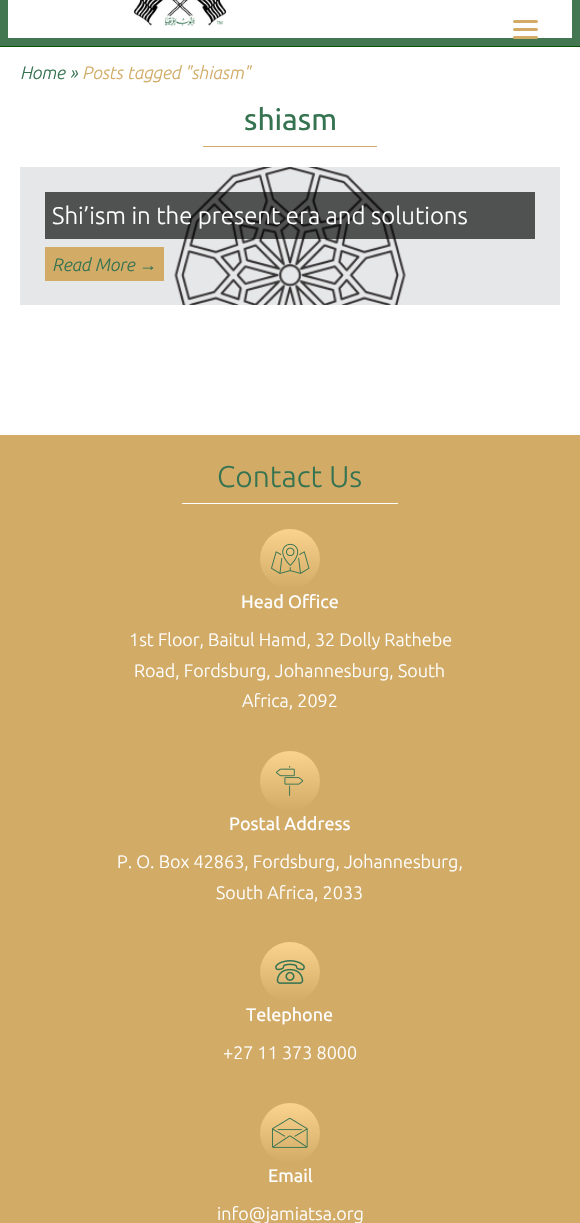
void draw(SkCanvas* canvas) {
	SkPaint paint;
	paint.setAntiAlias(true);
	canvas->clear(0xffffffff);
	paint.setStroke(true);
	paint.setStrokeWidth(8);
	paint.setColor(0xff427752);
	canvas->drawRect(SkRect::MakeXYWH(4, -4, 572, 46), paint);
	canvas->drawImageRect(SkImages::DeferredFromEncodedData(SkData::MakeFromFileName("img1.png")), SkRect::MakeXYWH(133, 0, 94, 27), SkSamplingOptions());
	paint.setStroke(false);
	paint.setColor(0xff0a5100);
	canvas->drawRect(SkRect::MakeXYWH(0, 46, 580, 1), paint);
	paint.setColor(0xffd2ab66);
	canvas->drawRoundRect(SkRect::MakeXYWH(513, 28, 25, 3), 1.5, 1.5, paint);
	canvas->drawRoundRect(SkRect::MakeXYWH(513, 20, 25, 3), 1.5, 1.5, paint);
	canvas->drawRoundRect(SkRect::MakeXYWH(513, 36, 25, 3), 1.5, 1.5, paint);
	SkFont f1(fontMgr->matchFamilyStyle("Ubuntu", SkFontStyle(300, SkFontStyle::kNormal_Width, SkFontStyle::kItalic_Slant)), 18);
	f1.setSubpixel(true);
	paint.setColor(0xff367351);
	canvas->drawString("Home »", 20, 79, f1, paint);
	paint.setColor(0xffd2ab66);
	canvas->drawString("Posts tagged \"shiasm\"", 82, 79, f1, paint);
	SkFont f2(fontMgr->matchFamilyStyle("Ubuntu", SkFontStyle::Normal()), 30);
	f2.setSubpixel(true);
	paint.setColor(0xff367351);
	canvas->drawString("shiasm", 244, 130, f2, paint);
	paint.setColor(0xffd2ab66);
	canvas->drawRect(SkRect::MakeXYWH(203, 146, 174, 1), paint);
	canvas->drawImageRect(SkImages::DeferredFromEncodedData(SkData::MakeFromFileName("img2.png")), SkRect::MakeXYWH(20, 167, 540, 138), SkSamplingOptions());
	paint.setColor(0xa6000000);
	canvas->drawRect(SkRect::MakeXYWH(45, 192, 490, 47), paint);
	SkFont f3(fontMgr->matchFamilyStyle("Ubuntu", SkFontStyle(300, SkFontStyle::kNormal_Width, SkFontStyle::kUpright_Slant)), 24);
	f3.setSubpixel(true);
	paint.setColor(0xffffffff);
	canvas->drawString("Shi’ism in the present era and solutions", 52, 224, f3, paint);
	paint.setColor(0xffd2ab66);
	canvas->drawRect(SkRect::MakeXYWH(45, 247, 119, 34), paint);
	paint.setColor(0xff367351);
	canvas->drawString("Read More", 52, 271, f1, paint);
	SkFont f4(fontMgr->matchFamilyStyle("Liberation Sans", SkFontStyle::Italic()), 18);
	f4.setSubpixel(true);
	canvas->drawString("→", 139, 271, f4, paint);
	paint.setColor(0xffd2ab66);
	canvas->drawRect(SkRect::MakeXYWH(0, 435, 580, 788), paint);
	SkFont f5(fontMgr->matchFamilyStyle("Ubuntu", SkFontStyle(300, SkFontStyle::kNormal_Width, SkFontStyle::kUpright_Slant)), 30);
	f5.setSubpixel(true);
	paint.setColor(0xff367351);
	canvas->drawString("Contact Us", 217, 487, f5, paint);
	paint.setColor(0xffffffff);
	canvas->drawRect(SkRect::MakeXYWH(182, 503, 216, 1), paint);
	{
		const SkColor colors[] = {0xfffad38e, 0xffd2ab66};
		const float stops[] = {0, 1};
		const SkPoint ends[] = {{290, 529}, {290, 589}};
		paint.setShader(SkGradientShader::MakeLinear(ends, colors, stops, 2, SkTileMode::kClamp));
		paint.setAlpha(255);
	}
	canvas->drawCircle(290, 559, 30, paint);
	canvas->drawImageRect(SkImages::DeferredFromEncodedData(SkData::MakeFromFileName("img3.png")), SkRect::MakeXYWH(271, 543, 39, 31), SkSamplingOptions());
	SkFont f6(fontMgr->matchFamilyStyle("Ubuntu", SkFontStyle::Normal()), 18);
	f6.setSubpixel(true);
	paint.setShader(nullptr);
	paint.setColor(0xffffffff);
	canvas->drawString("Head Office", 241, 608, f6, paint);
	SkFont f7(fontMgr->matchFamilyStyle("Ubuntu", SkFontStyle(300, SkFontStyle::kNormal_Width, SkFontStyle::kUpright_Slant)), 18);
	f7.setSubpixel(true);
	canvas->drawString("1st Floor, Baitul Hamd, 32 Dolly Rathebe", 129, 646, f7, paint);
	canvas->drawString("Road, Fordsburg, Johannesburg, South", 134, 677, f7, paint);
	canvas->drawString("Africa, 2092", 242, 707, f7, paint);
	{
		const SkColor colors[] = {0xfffad38e, 0xffd2ab66};
		const float stops[] = {0, 1};
		const SkPoint ends[] = {{290, 751}, {290, 811}};
		paint.setShader(SkGradientShader::MakeLinear(ends, colors, stops, 2, SkTileMode::kClamp));
		paint.setAlpha(255);
	}
	canvas->drawCircle(290, 781, 30, paint);
	canvas->drawImageRect(SkImages::DeferredFromEncodedData(SkData::MakeFromFileName("img4.png")), SkRect::MakeXYWH(276, 765, 28, 31), SkSamplingOptions());
	paint.setShader(nullptr);
	paint.setColor(0xffffffff);
	canvas->drawString("Postal Address", 229, 830, f6, paint);
	canvas->drawString("P. O. Box 42863, Fordsburg, Johannesburg,", 117, 868, f7, paint);
	canvas->drawString("South Africa, 2033", 216, 899, f7, paint);
	{
		const SkColor colors[] = {0xfffad38e, 0xffd2ab66};
		const float stops[] = {0, 1};
		const SkPoint ends[] = {{290, 942}, {290, 1002}};
		paint.setShader(SkGradientShader::MakeLinear(ends, colors, stops, 2, SkTileMode::kClamp));
		paint.setAlpha(255);
	}
	canvas->drawCircle(290, 972, 30, paint);
	canvas->drawImageRect(SkImages::DeferredFromEncodedData(SkData::MakeFromFileName("img5.png")), SkRect::MakeXYWH(275, 960, 30, 24), SkSamplingOptions());
	paint.setShader(nullptr);
	paint.setColor(0xffffffff);
	canvas->drawString("Telephone", 246, 1021, f6, paint);
	canvas->drawString("+27 11 373 8000", 223, 1059, f7, paint);
	{
		const SkColor colors[] = {0xfffad38e, 0xffd2ab66};
		const float stops[] = {0, 1};
		const SkPoint ends[] = {{290, 1103}, {290, 1163}};
		paint.setShader(SkGradientShader::MakeLinear(ends, colors, stops, 2, SkTileMode::kClamp));
		paint.setAlpha(255);
	}
	canvas->drawCircle(290, 1133, 30, paint);
	canvas->drawImageRect(SkImages::DeferredFromEncodedData(SkData::MakeFromFileName("img6.png")), SkRect::MakeXYWH(272, 1117, 36, 31), SkSamplingOptions());
	paint.setShader(nullptr);
	paint.setColor(0xffffffff);
	canvas->drawString("Email", 268, 1182, f6, paint);
	canvas->drawString("info@jamiatsa.org", 217, 1220, f7, paint);
}
